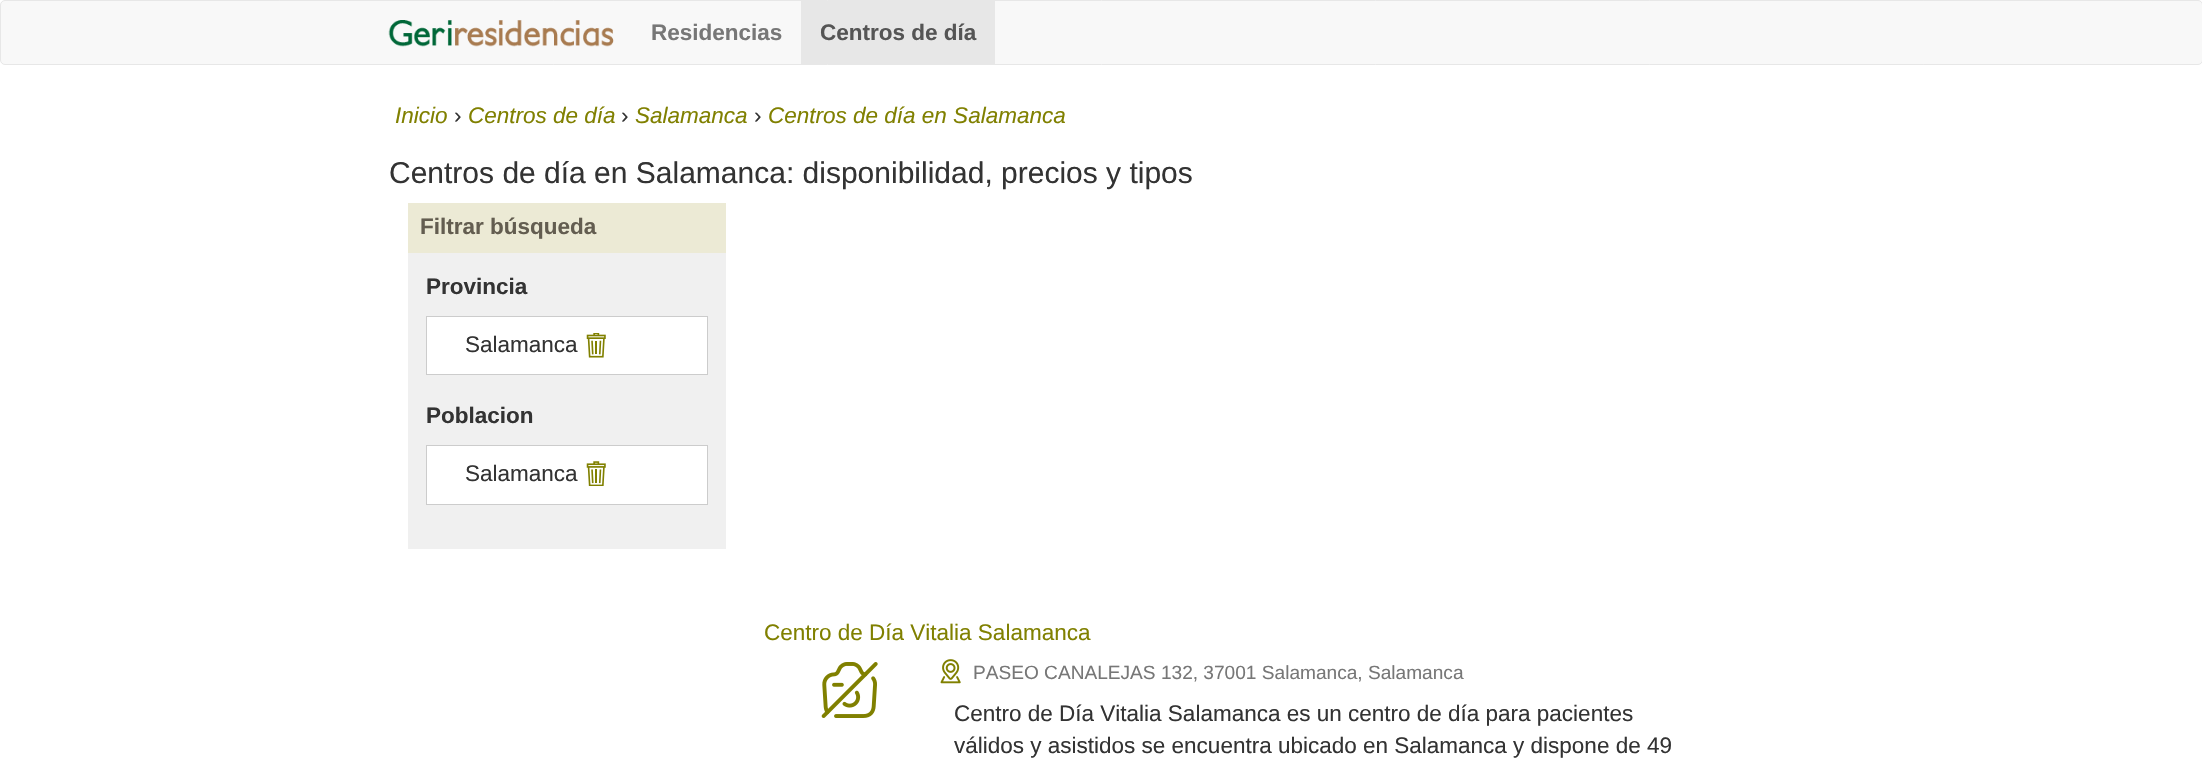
void draw(SkCanvas* canvas) {
	SkPaint paint;
	paint.setAntiAlias(true);
	canvas->clear(0xffffffff);
	paint.setColor(0xfff8f8f8);
	canvas->drawRoundRect(SkRect::MakeXYWH(0.5, 0.5, 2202, 64), 4.5, 4.5, paint);
	paint.setStroke(true);
	paint.setStrokeWidth(1);
	paint.setColor(0xffe7e7e7);
	canvas->drawRoundRect(SkRect::MakeXYWH(0.5, 0.5, 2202, 64), 4.5, 4.5, paint);
	canvas->drawImageRect(SkImages::DeferredFromEncodedData(SkData::MakeFromFileName("img1.png")), SkRect::MakeXYWH(388, 20, 226, 27), SkSamplingOptions());
	SkFont f1(fontMgr->matchFamilyStyle("Liberation Sans", SkFontStyle::Bold()), 22.5);
	f1.setSubpixel(true);
	paint.setStroke(false);
	paint.setColor(0xff777777);
	canvas->drawString("Residencias", 651, 40, f1, paint);
	paint.setColor(0xffe7e7e7);
	canvas->drawRect(SkRect::MakeXYWH(801, 1, 194, 63), paint);
	paint.setColor(0xff555555);
	canvas->drawString("Centros de día", 820, 40, f1, paint);
	SkFont f2(fontMgr->matchFamilyStyle("Liberation Sans", SkFontStyle::Italic()), 22.5);
	f2.setSubpixel(true);
	paint.setColor(0xff808000);
	canvas->drawString("Inicio", 395, 123, f2, paint);
	SkFont f3(fontMgr->matchFamilyStyle("Liberation Sans", SkFontStyle::Normal()), 22.5);
	f3.setSubpixel(true);
	paint.setColor(0xff333333);
	canvas->drawString("›", 454, 123, f3, paint);
	paint.setColor(0xff808000);
	canvas->drawString("Centros de día", 468, 123, f2, paint);
	paint.setColor(0xff333333);
	canvas->drawString("›", 621, 123, f3, paint);
	paint.setColor(0xff808000);
	canvas->drawString("Salamanca", 635, 123, f2, paint);
	paint.setColor(0xff333333);
	canvas->drawString("›", 754, 123, f3, paint);
	paint.setColor(0xff808000);
	canvas->drawString("Centros de día en Salamanca", 768, 123, f2, paint);
	SkFont f4(fontMgr->matchFamilyStyle("Liberation Sans", SkFontStyle::Normal()), 30);
	f4.setSubpixel(true);
	paint.setColor(0xff333333);
	canvas->drawString("Centros de día en Salamanca: disponibilidad, precios y tipos", 389, 183, f4, paint);
	paint.setColor(0xfff0f0f0);
	canvas->drawRect(SkRect::MakeXYWH(408, 253, 318, 296), paint);
	paint.setColor(0xffecead5);
	canvas->drawRect(SkRect::MakeXYWH(408, 203, 318, 50), paint);
	paint.setColor(0xff635d50);
	canvas->drawString("Filtrar búsqueda", 420, 234, f1, paint);
	paint.setColor(0xff333333);
	canvas->drawString("Provincia", 426, 294, f1, paint);
	paint.setColor(0xffffffff);
	canvas->drawRect(SkRect::MakeXYWH(426.5, 316.5, 281, 58), paint);
	paint.setStroke(true);
	paint.setColor(0xffcccccc);
	canvas->drawRect(SkRect::MakeXYWH(426.5, 316.5, 281, 58), paint);
	paint.setStroke(false);
	paint.setColor(0xff333333);
	canvas->drawString("Salamanca", 465, 352, f3, paint);
	canvas->drawImageRect(SkImages::DeferredFromEncodedData(SkData::MakeFromFileName("img2.png")), SkRect::MakeXYWH(586, 333, 20, 25), SkSamplingOptions());
	canvas->drawString("Poblacion", 426, 423, f1, paint);
	paint.setColor(0xffffffff);
	canvas->drawRect(SkRect::MakeXYWH(426.5, 445.5, 281, 59), paint);
	paint.setStroke(true);
	paint.setColor(0xffcccccc);
	canvas->drawRect(SkRect::MakeXYWH(426.5, 445.5, 281, 59), paint);
	paint.setStroke(false);
	paint.setColor(0xff333333);
	canvas->drawString("Salamanca", 465, 481, f3, paint);
	canvas->drawImageRect(SkImages::DeferredFromEncodedData(SkData::MakeFromFileName("img3.png")), SkRect::MakeXYWH(586, 461, 20, 25), SkSamplingOptions());
	paint.setColor(0xff808000);
	canvas->drawString("Centro de Día Vitalia Salamanca", 764, 640, f3, paint);
	canvas->drawImageRect(SkImages::DeferredFromEncodedData(SkData::MakeFromFileName("img4.png")), SkRect::MakeXYWH(821, 662, 57, 56), SkSamplingOptions());
	canvas->drawImageRect(SkImages::DeferredFromEncodedData(SkData::MakeFromFileName("img5.png")), SkRect::MakeXYWH(940, 659, 21, 25), SkSamplingOptions());
	SkFont f5(fontMgr->matchFamilyStyle("Liberation Sans", SkFontStyle::Normal()), 19.1);
	f5.setSubpixel(true);
	paint.setColor(0xff777777);
	canvas->drawString("PASEO CANALEJAS 132, 37001 Salamanca, Salamanca", 973, 679, f5, paint);
	paint.setColor(0xff333333);
	canvas->drawString("Centro de Día Vitalia Salamanca es un centro de día para pacientes", 954, 721, f3, paint);
	canvas->drawString("válidos y asistidos se encuentra ubicado en Salamanca y dispone de 49", 954, 753, f3, paint);
}
